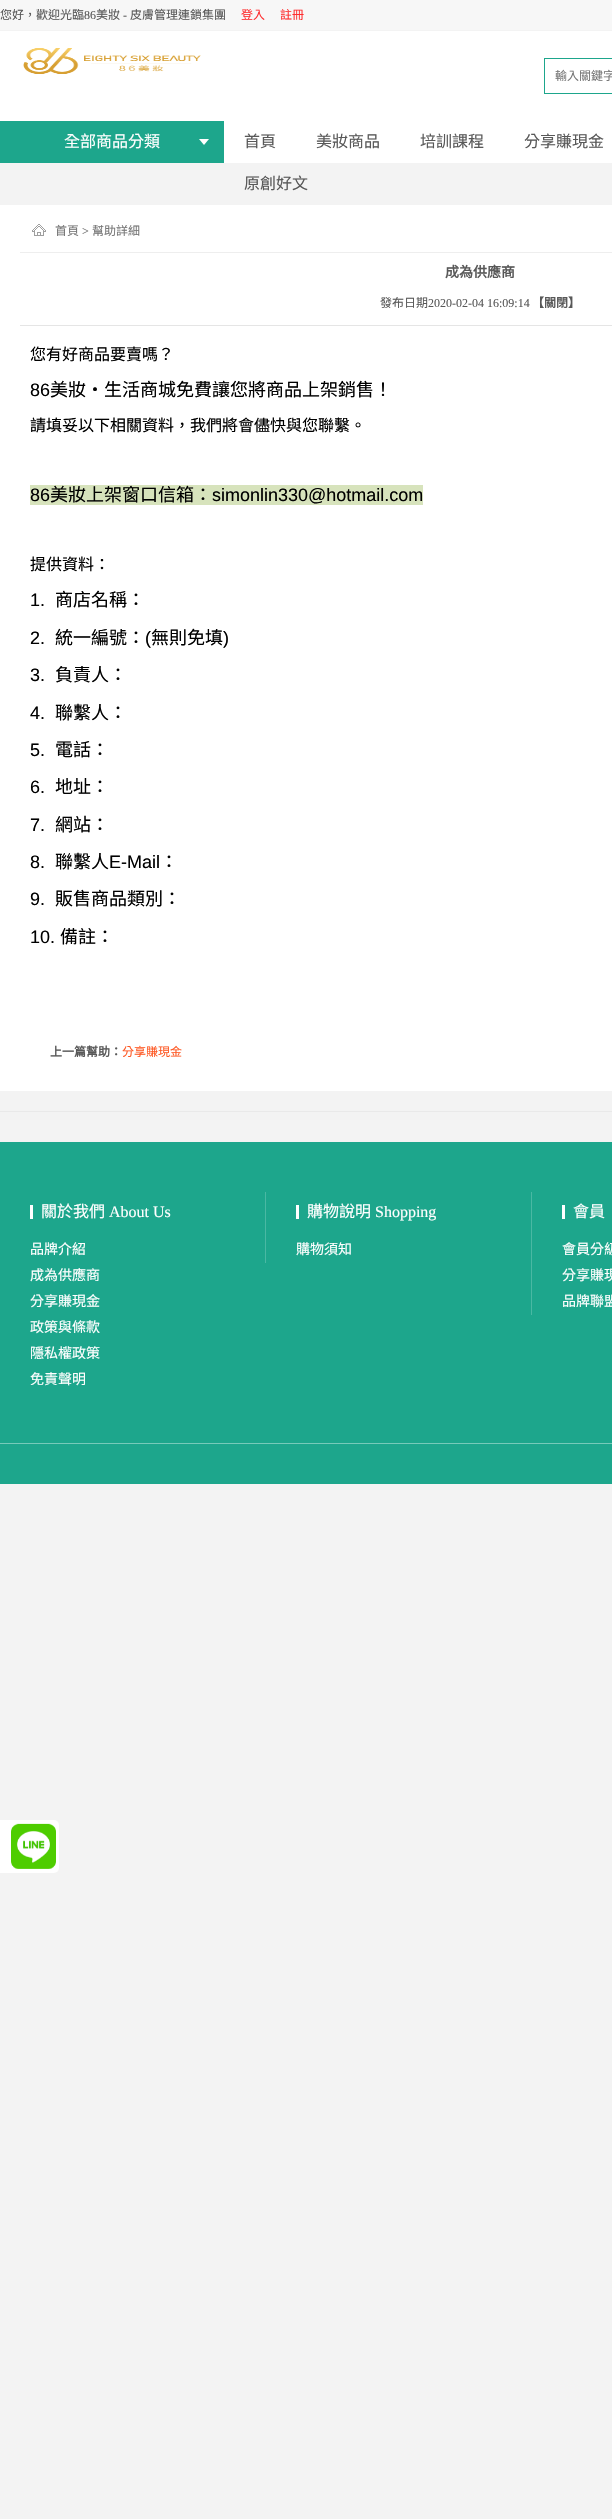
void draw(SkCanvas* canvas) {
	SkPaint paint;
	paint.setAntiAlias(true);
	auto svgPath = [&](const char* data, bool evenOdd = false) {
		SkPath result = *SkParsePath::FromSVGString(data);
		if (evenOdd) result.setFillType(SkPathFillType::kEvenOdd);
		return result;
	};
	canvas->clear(0xfff3f3f3);
	paint.setColor(0xfff7f7f7);
	canvas->drawRect(SkRect::MakeXYWH(0, 0, 612, 30), paint);
	SkFont f1(fontMgr->matchFamilyStyle("Noto Sans CJK TC", SkFontStyle::Normal()), 12);
	f1.setSubpixel(true);
	paint.setColor(0xff585858);
	canvas->drawString("您好，歡迎光臨", 0, 19, f1, paint);
	SkFont f2(fontMgr->matchFamilyStyle("Liberation Serif", SkFontStyle::Normal()), 12);
	f2.setSubpixel(true);
	canvas->drawString("86", 84, 19, f2, paint);
	canvas->drawString("美妝", 96, 19, f1, paint);
	canvas->drawString("-", 123, 19, f2, paint);
	canvas->drawString("皮膚管理連鎖集團", 130, 19, f1, paint);
	paint.setColor(0xffff2e2f);
	canvas->drawString("登入", 241, 19, f1, paint);
	canvas->drawString("註冊", 280, 19, f1, paint);
	paint.setColor(0xffffffff);
	canvas->drawRect(SkRect::MakeXYWH(0, 31, 612, 90), paint);
	canvas->drawImageRect(SkImages::DeferredFromEncodedData(SkData::MakeFromFileName("img1.png")), SkRect::MakeXYWH(23, 48, 178, 26), SkSamplingOptions());
	paint.setStroke(true);
	paint.setStrokeWidth(1);
	paint.setColor(0xff1da68c);
	canvas->drawRect(SkRect::MakeXYWH(544.5, 58.5, 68, 35), paint);
	paint.setStroke(false);
	paint.setColor(0xff757575);
	canvas->drawString("輸入關鍵字", 555, 80, f1, paint);
	paint.setColor(0xffffffff);
	canvas->drawRect(SkRect::MakeXYWH(224, 121, 388, 42), paint);
	paint.setColor(0xff1da68c);
	canvas->drawRect(SkRect::MakeXYWH(0, 121, 224, 42), paint);
	SkFont f3(fontMgr->matchFamilyStyle("Noto Sans CJK TC", SkFontStyle::Normal()), 16);
	f3.setSubpixel(true);
	paint.setColor(0xffffffff);
	canvas->drawString("全部商品分類", 64, 147, f3, paint);
	canvas->drawPath(svgPath("M199 139H209L204 145Z"), paint);
	paint.setColor(0xff585858);
	canvas->drawString("首頁", 244, 147, f3, paint);
	canvas->drawString("美妝商品", 316, 147, f3, paint);
	canvas->drawString("培訓課程", 420, 147, f3, paint);
	canvas->drawString("分享賺現金", 524, 147, f3, paint);
	canvas->drawString("原創好文", 244, 189, f3, paint);
	paint.setColor(0xffffffff);
	canvas->drawRect(SkRect::MakeXYWH(0, 205, 612, 886), paint);
	canvas->drawImageRect(SkImages::DeferredFromEncodedData(SkData::MakeFromFileName("img2.png")), SkRect::MakeXYWH(32, 224, 14, 12), SkSamplingOptions());
	paint.setColor(0xffeeeeee);
	canvas->drawRect(SkRect::MakeXYWH(20, 252, 592, 1), paint);
	paint.setColor(0xff757575);
	canvas->drawString("首頁", 55, 235, f1, paint);
	canvas->drawString(">", 82, 235, f2, paint);
	canvas->drawString("幫助詳細", 92, 235, f1, paint);
	SkFont f4(fontMgr->matchFamilyStyle("Noto Sans CJK TC", SkFontStyle::Bold()), 14);
	f4.setSubpixel(true);
	paint.setColor(0xff585858);
	canvas->drawString("成為供應商", 445, 277, f4, paint);
	paint.setColor(0xffe5e5e5);
	canvas->drawRect(SkRect::MakeXYWH(20, 325, 592, 1), paint);
	paint.setColor(0xff585858);
	canvas->drawString("發布日期", 380, 307, f1, paint);
	canvas->drawString("2020-02-04 16:09:14", 428, 307, f2, paint);
	SkFont f5(fontMgr->matchFamilyStyle("Noto Sans CJK TC", SkFontStyle::Bold()), 12);
	f5.setSubpixel(true);
	canvas->drawString("【關閉】", 532, 307, f5, paint);
	paint.setColor(0xff000000);
	canvas->drawString("您有好商品要賣嗎？", 30, 360, f3, paint);
	SkFont f6(fontMgr->matchFamilyStyle("Liberation Sans", SkFontStyle::Normal()), 18);
	f6.setSubpixel(true);
	canvas->drawString("86", 30, 396, f6, paint);
	SkFont f7(fontMgr->matchFamilyStyle("Noto Sans CJK TC", SkFontStyle::Normal()), 18);
	f7.setSubpixel(true);
	canvas->drawString("美妝‧生活商城免費讓您將商品上架銷售！", 50, 396, f7, paint);
	canvas->drawString("請填妥以下相關資料，我們將會儘快與您聯繫。", 30, 431, f3, paint);
	paint.setColor(0xffd7e3bc);
	canvas->drawRect(SkRect::MakeXYWH(30, 485, 393, 20), paint);
	paint.setColor(0xff000000);
	canvas->drawString("86", 30, 501, f6, paint);
	canvas->drawString("美妝上架窗口信箱：", 50, 501, f7, paint);
	canvas->drawString("simonlin330@hotmail.com", 212, 501, f6, paint);
	canvas->drawString("提供資料：", 30, 570, f3, paint);
	canvas->drawString("1.", 30, 606, f6, paint);
	canvas->drawString("商店名稱：", 55, 606, f7, paint);
	canvas->drawString("2.", 30, 644, f6, paint);
	canvas->drawString("統一編號：", 55, 644, f7, paint);
	canvas->drawString("(", 145, 644, f6, paint);
	canvas->drawString("無則免填", 151, 644, f7, paint);
	canvas->drawString(")", 223, 644, f6, paint);
	canvas->drawString("3.", 30, 681, f6, paint);
	canvas->drawString("負責人：", 55, 681, f7, paint);
	canvas->drawString("4.", 30, 719, f6, paint);
	canvas->drawString("聯繫人：", 55, 719, f7, paint);
	canvas->drawString("5.", 30, 756, f6, paint);
	canvas->drawString("電話：", 55, 756, f7, paint);
	canvas->drawString("6.", 30, 793, f6, paint);
	canvas->drawString("地址：", 55, 793, f7, paint);
	canvas->drawString("7.", 30, 831, f6, paint);
	canvas->drawString("網站：", 55, 831, f7, paint);
	canvas->drawString("8.", 30, 868, f6, paint);
	canvas->drawString("聯繫人", 55, 868, f7, paint);
	canvas->drawString("E-Mail", 109, 868, f6, paint);
	canvas->drawString("：", 160, 868, f7, paint);
	canvas->drawString("9.", 30, 905, f6, paint);
	canvas->drawString("販售商品類別：", 55, 905, f7, paint);
	canvas->drawString("10.", 30, 943, f6, paint);
	canvas->drawString("備註：", 60, 943, f7, paint);
	paint.setColor(0xff585858);
	canvas->drawString("上一篇幫助：", 50, 1056, f5, paint);
	paint.setColor(0xfffe5722);
	canvas->drawString("分享賺現金", 122, 1056, f1, paint);
	paint.setColor(0xffe9e9e9);
	canvas->drawRect(SkRect::MakeXYWH(0, 1111, 612, 1), paint);
	paint.setColor(0xff1da68c);
	canvas->drawRect(SkRect::MakeXYWH(0, 1142, 612, 342), paint);
	paint.setColor(0xffffffff);
	canvas->drawRect(SkRect::MakeXYWH(30, 1205, 3, 14), paint);
	canvas->drawString("關於我們", 41, 1217, f3, paint);
	SkFont f8(fontMgr->matchFamilyStyle("Liberation Serif", SkFontStyle::Normal()), 16);
	f8.setSubpixel(true);
	canvas->drawString("About Us", 109, 1217, f8, paint);
	SkFont f9(fontMgr->matchFamilyStyle("Noto Sans CJK TC", SkFontStyle::Normal()), 14);
	f9.setSubpixel(true);
	canvas->drawString("品牌介紹", 30, 1254, f9, paint);
	canvas->drawString("成為供應商", 30, 1280, f9, paint);
	canvas->drawString("分享賺現金", 30, 1306, f9, paint);
	canvas->drawString("政策與條款", 30, 1332, f9, paint);
	canvas->drawString("隱私權政策", 30, 1358, f9, paint);
	canvas->drawString("免責聲明", 30, 1384, f9, paint);
	paint.setColor(0xff4ab8a3);
	canvas->drawRect(SkRect::MakeXYWH(265, 1192, 1, 71), paint);
	paint.setColor(0xffffffff);
	canvas->drawRect(SkRect::MakeXYWH(296, 1205, 3, 14), paint);
	canvas->drawString("購物說明", 307, 1217, f3, paint);
	canvas->drawString("Shopping", 375, 1217, f8, paint);
	canvas->drawString("購物須知", 296, 1254, f9, paint);
	paint.setColor(0xff4ab8a3);
	canvas->drawRect(SkRect::MakeXYWH(531, 1192, 1, 123), paint);
	paint.setColor(0xffffffff);
	canvas->drawRect(SkRect::MakeXYWH(562, 1205, 3, 14), paint);
	canvas->drawString("會員", 573, 1217, f3, paint);
	canvas->drawString("會員分級", 562, 1254, f9, paint);
	canvas->drawString("分享賺現", 562, 1280, f9, paint);
	canvas->drawString("品牌聯盟", 562, 1306, f9, paint);
	paint.setColor(0xff77caba);
	canvas->drawRect(SkRect::MakeXYWH(0, 1443, 612, 1), paint);
	paint.setColor(0xffffffff);
	canvas->drawRoundRect(SkRect::MakeXYWH(-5, 1820, 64, 53), 5, 5, paint);
	canvas->drawImageRect(SkImages::DeferredFromEncodedData(SkData::MakeFromFileName("img3.png")), SkRect::MakeXYWH(11, 1823, 45, 46), SkSamplingOptions());
}
